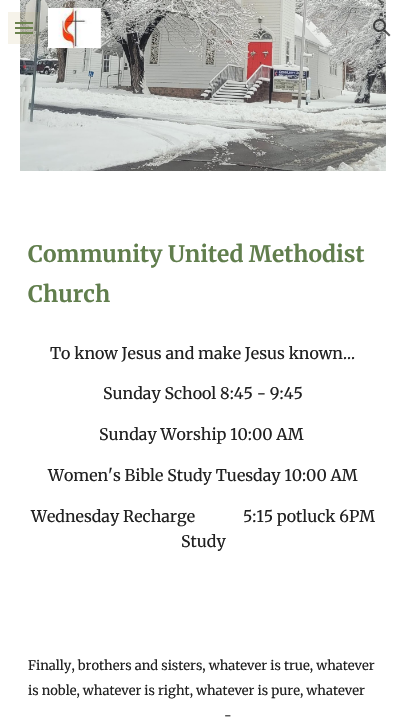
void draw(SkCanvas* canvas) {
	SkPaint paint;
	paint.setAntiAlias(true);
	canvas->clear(0xffffffff);
	canvas->drawImageRect(SkImages::DeferredFromEncodedData(SkData::MakeFromFileName("img3.png")), SkRect::MakeXYWH(20, 0, 366, 171), SkSamplingOptions());
	paint.setColor(0xff617e4d);
	canvas->drawRect(SkRect::MakeXYWH(15, 22, 18, 2), paint);
	canvas->drawRect(SkRect::MakeXYWH(15, 27, 18, 2), paint);
	canvas->drawRect(SkRect::MakeXYWH(15, 32, 18, 2), paint);
	paint.setColor(0x1fb79951);
	canvas->drawRect(SkRect::MakeXYWH(8, 12, 32, 32), paint);
	canvas->drawImageRect(SkImages::DeferredFromEncodedData(SkData::MakeFromFileName("img1.png")), SkRect::MakeXYWH(48, 8, 54, 40), SkSamplingOptions());
	canvas->drawImageRect(SkImages::DeferredFromEncodedData(SkData::MakeFromFileName("img2.png")), SkRect::MakeXYWH(373, 19, 18, 18), SkSamplingOptions());
	SkFont f1(fontMgr->matchFamilyStyle("Merriweather", SkFontStyle::Bold()), 22.7);
	f1.setSubpixel(true);
	paint.setColor(0xff617e4d);
	canvas->drawString("Community United Methodist", 28, 262, f1, paint);
	canvas->drawString("Church", 28, 302, f1, paint);
	SkFont f2(fontMgr->matchFamilyStyle("Merriweather", SkFontStyle::Normal()), 16);
	f2.setSubpixel(true);
	paint.setColor(0xff212121);
	canvas->drawString("To know Jesus and make Jesus known...", 50, 359, f2, paint);
	canvas->drawString("Sunday School 8:45 - 9:45", 103, 399, f2, paint);
	canvas->drawString("Sunday Worship 10:00 AM", 99, 440, f2, paint);
	canvas->drawString("Women's Bible Study Tuesday 10:00 AM", 48, 481, f2, paint);
	canvas->drawString("Wednesday Recharge", 31, 522, f2, paint);
	canvas->drawString("5:15 potluck 6PM", 243, 522, f2, paint);
	canvas->drawString("Study", 181, 547, f2, paint);
	SkFont f3(fontMgr->matchFamilyStyle("Merriweather", SkFontStyle::Normal()), 13);
	f3.setSubpixel(true);
	canvas->drawString("Finally, brothers and sisters, whatever is true, whatever", 28, 670, f3, paint);
	canvas->drawString("is noble, whatever is right, whatever is pure, whatever", 28, 695, f3, paint);
	canvas->drawString("-", 224, 720, f3, paint);
}
